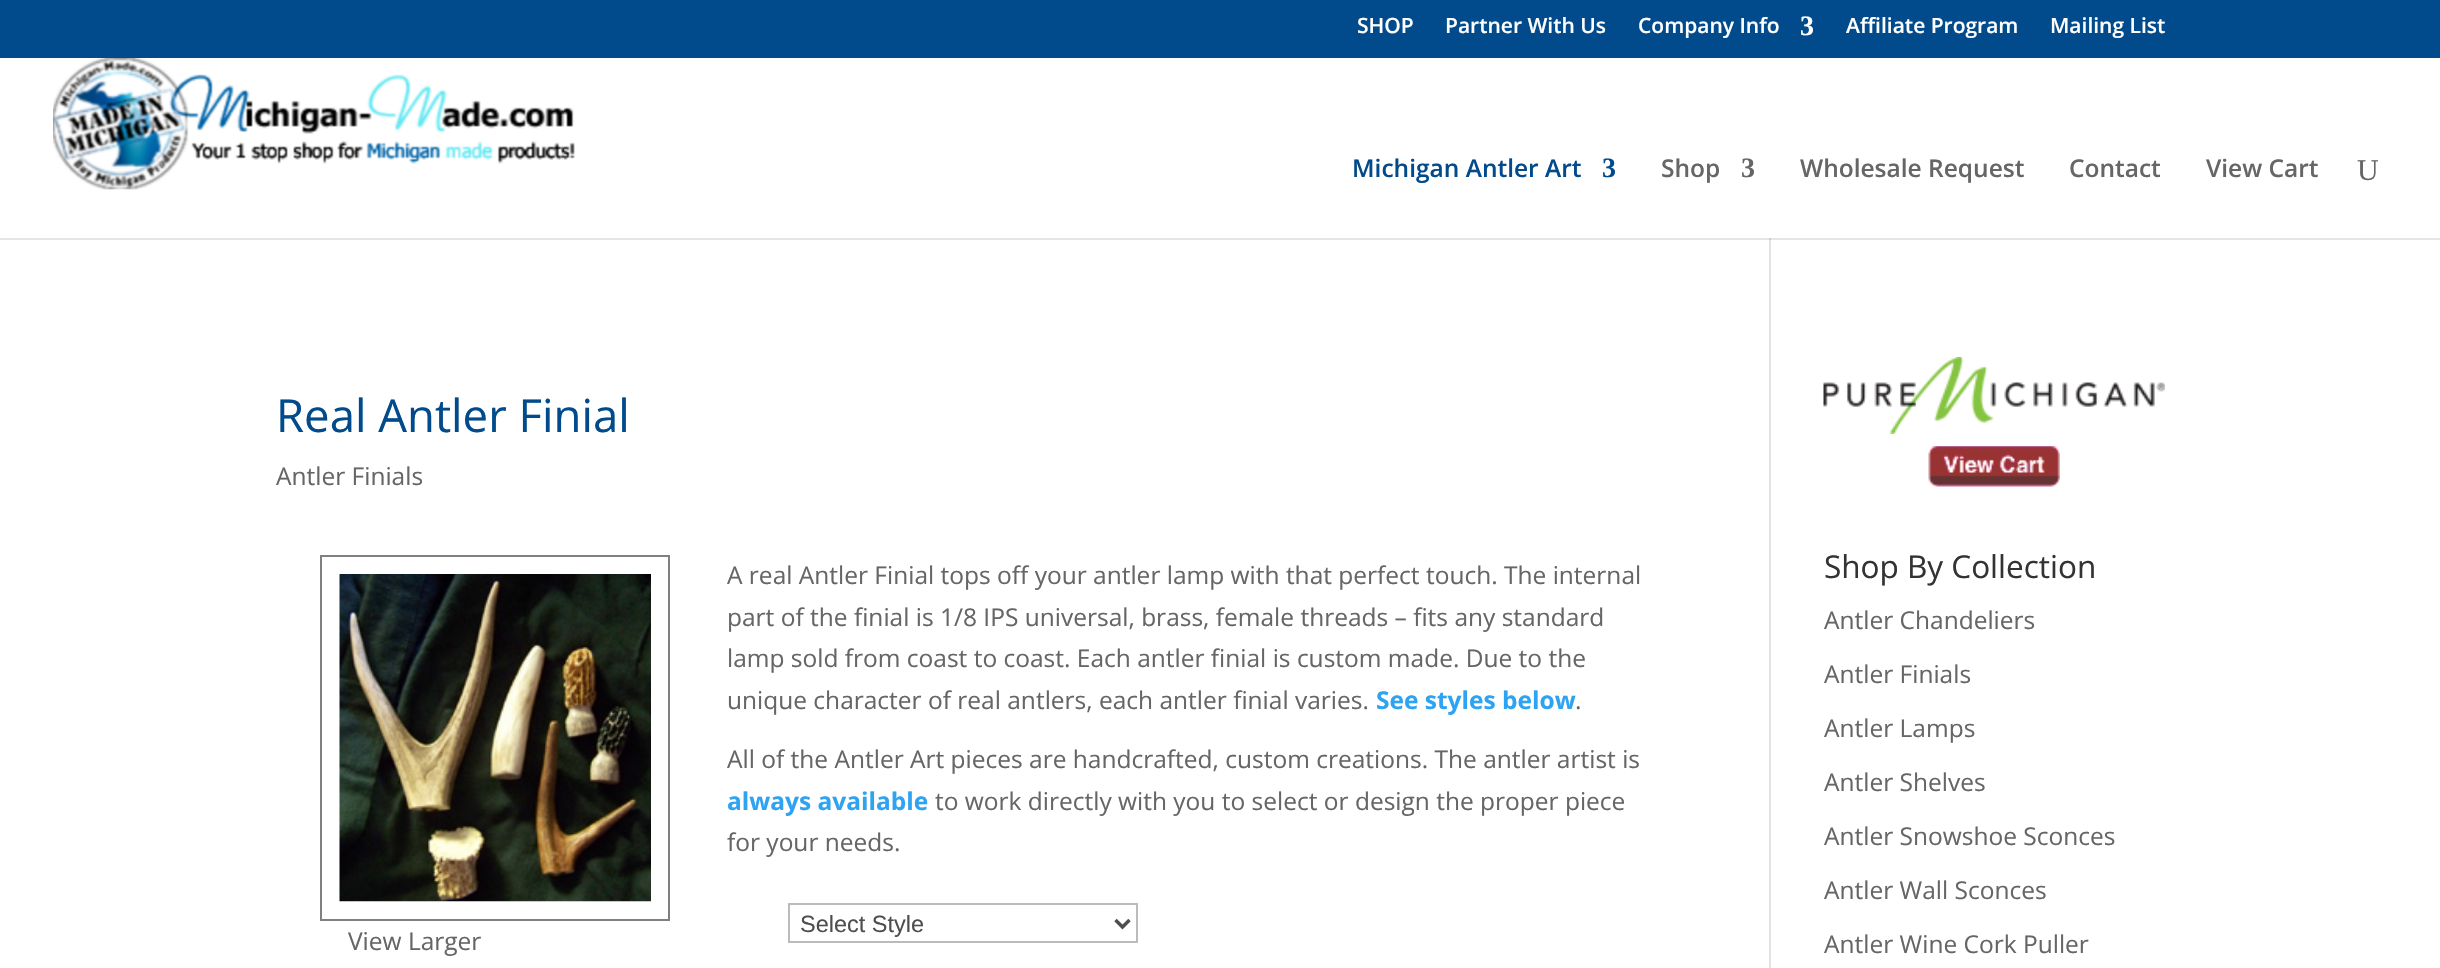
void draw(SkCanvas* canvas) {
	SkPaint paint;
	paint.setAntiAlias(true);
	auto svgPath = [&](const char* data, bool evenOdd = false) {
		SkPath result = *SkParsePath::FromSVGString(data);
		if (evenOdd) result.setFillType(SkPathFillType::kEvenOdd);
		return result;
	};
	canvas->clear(0xffffffff);
	paint.setColor(0xffe6e6e6);
	canvas->drawRect(SkRect::MakeXYWH(0, 238, 2440, 2), paint);
	paint.setColor(0xff014b8c);
	canvas->drawRect(SkRect::MakeXYWH(0, 0, 2440, 58), paint);
	SkFont f1(fontMgr->matchFamilyStyle("Open Sans", SkFontStyle(600, SkFontStyle::kNormal_Width, SkFontStyle::kUpright_Slant)), 21);
	f1.setSubpixel(true);
	paint.setColor(0xffffffff);
	canvas->drawString("SHOP", 1357, 33, f1, paint);
	canvas->drawString("Partner With Us", 1445, 33, f1, paint);
	canvas->drawString("Company Info", 1638, 33, f1, paint);
	SkFont f2(fontMgr->matchFamilyStyle("Liberation Serif", SkFontStyle::Bold()), 28);
	f2.setSubpixel(true);
	canvas->drawString("3", 1800, 35, f2, paint);
	canvas->drawString("Affiliate Program", 1846, 33, f1, paint);
	canvas->drawString("Mailing List", 2050, 33, f1, paint);
	canvas->drawImageRect(SkImages::DeferredFromEncodedData(SkData::MakeFromFileName("img1.png")), SkRect::MakeXYWH(53, 58, 522, 132), SkSamplingOptions());
	SkFont f3(fontMgr->matchFamilyStyle("Open Sans", SkFontStyle(600, SkFontStyle::kNormal_Width, SkFontStyle::kUpright_Slant)), 24.5);
	f3.setSubpixel(true);
	paint.setColor(0xff014b8c);
	canvas->drawString("Michigan Antler Art", 1352, 177, f3, paint);
	canvas->drawString("3", 1602, 177, f2, paint);
	paint.setColor(0xff666666);
	canvas->drawString("Shop", 1661, 177, f3, paint);
	canvas->drawString("3", 1741, 177, f2, paint);
	canvas->drawString("Wholesale Request", 1800, 177, f3, paint);
	canvas->drawString("Contact", 2069, 177, f3, paint);
	canvas->drawString("View Cart", 2206, 177, f3, paint);
	SkFont f4(fontMgr->matchFamilyStyle("Liberation Serif", SkFontStyle::Normal()), 30);
	f4.setSubpixel(true);
	canvas->drawString("U", 2357, 180, f4, paint);
	paint.setColor(0xffe2e2e2);
	canvas->drawRect(SkRect::MakeXYWH(1769, 238, 2, 730), paint);
	paint.setColor(0xffcbcbcb);
	canvas->drawRect(SkRect::MakeXYWH(1769, 238, 2, 2), paint);
	SkFont f5(fontMgr->matchFamilyStyle("Open Sans", SkFontStyle::Normal()), 45.5);
	f5.setSubpixel(true);
	paint.setColor(0xff014b8c);
	canvas->drawString("Real Antler Finial", 276, 432, f5, paint);
	SkFont f6(fontMgr->matchFamilyStyle("Open Sans", SkFontStyle::Normal()), 24.5);
	f6.setSubpixel(true);
	paint.setColor(0xff666666);
	canvas->drawString("Antler Finials", 276, 485, f6, paint);
	canvas->drawString("A real Antler Finial tops off your antler lamp with that perfect touch. The internal", 727, 584, f6, paint);
	canvas->drawString("part of the finial is 1/8 IPS universal, brass, female threads – fits any standard", 727, 626, f6, paint);
	canvas->drawString("lamp sold from coast to coast. Each antler finial is custom made. Due to the", 727, 667, f6, paint);
	canvas->drawString("unique character of real antlers, each antler finial varies.", 727, 709, f6, paint);
	SkFont f7(fontMgr->matchFamilyStyle("Open Sans", SkFontStyle::Bold()), 24.5);
	f7.setSubpixel(true);
	paint.setColor(0xff2ea3f2);
	canvas->drawString("See styles below", 1376, 709, f7, paint);
	paint.setColor(0xff666666);
	canvas->drawString(".", 1575, 709, f6, paint);
	canvas->drawString("All of the Antler Art pieces are handcrafted, custom creations. The antler artist is", 727, 768, f6, paint);
	paint.setColor(0xff2ea3f2);
	canvas->drawString("always available", 727, 810, f7, paint);
	paint.setColor(0xff666666);
	canvas->drawString("to work directly with you to select or design the proper piece", 935, 810, f6, paint);
	canvas->drawString("for your needs.", 727, 851, f6, paint);
	paint.setStroke(true);
	paint.setStrokeWidth(2);
	paint.setColor(0xffbbbbbb);
	canvas->drawRect(SkRect::MakeXYWH(789, 904, 348, 38), paint);
	paint.setStrokeWidth(3.5);
	paint.setColor(0xff4e4e4e);
	canvas->drawPath(svgPath("M1115.5 920L1122.5 927L1129.5 920"), paint);
	SkFont f8(fontMgr->matchFamilyStyle("Liberation Sans", SkFontStyle::Normal()), 23.5);
	f8.setSubpixel(true);
	paint.setStroke(false);
	canvas->drawString("Select Style", 800, 932, f8, paint);
	paint.setStroke(true);
	paint.setStrokeWidth(2);
	paint.setColor(0xff808080);
	canvas->drawRect(SkRect::MakeXYWH(321, 556, 348, 364), paint);
	canvas->drawImageRect(SkImages::DeferredFromEncodedData(SkData::MakeFromFileName("img2.png")), SkRect::MakeXYWH(339, 574, 312, 328), SkSamplingOptions());
	paint.setStroke(false);
	paint.setColor(0xff666666);
	canvas->drawString("View Larger", 348, 950, f6, paint);
	canvas->drawImageRect(SkImages::DeferredFromEncodedData(SkData::MakeFromFileName("img3.png")), SkRect::MakeXYWH(1823, 357, 342, 77), SkSamplingOptions());
	canvas->drawImageRect(SkImages::DeferredFromEncodedData(SkData::MakeFromFileName("img4.png")), SkRect::MakeXYWH(1928, 446, 132, 41), SkSamplingOptions());
	SkFont f9(fontMgr->matchFamilyStyle("Open Sans", SkFontStyle::Normal()), 31.5);
	f9.setSubpixel(true);
	paint.setColor(0xff333333);
	canvas->drawString("Shop By Collection", 1824, 578, f9, paint);
	paint.setColor(0xff666666);
	canvas->drawString("Antler Chandeliers", 1824, 629, f6, paint);
	canvas->drawString("Antler Finials", 1824, 683, f6, paint);
	canvas->drawString("Antler Lamps", 1824, 737, f6, paint);
	canvas->drawString("Antler Shelves", 1824, 791, f6, paint);
	canvas->drawString("Antler Snowshoe Sconces", 1824, 845, f6, paint);
	canvas->drawString("Antler Wall Sconces", 1824, 899, f6, paint);
	canvas->drawString("Antler Wine Cork Puller", 1824, 953, f6, paint);
}
